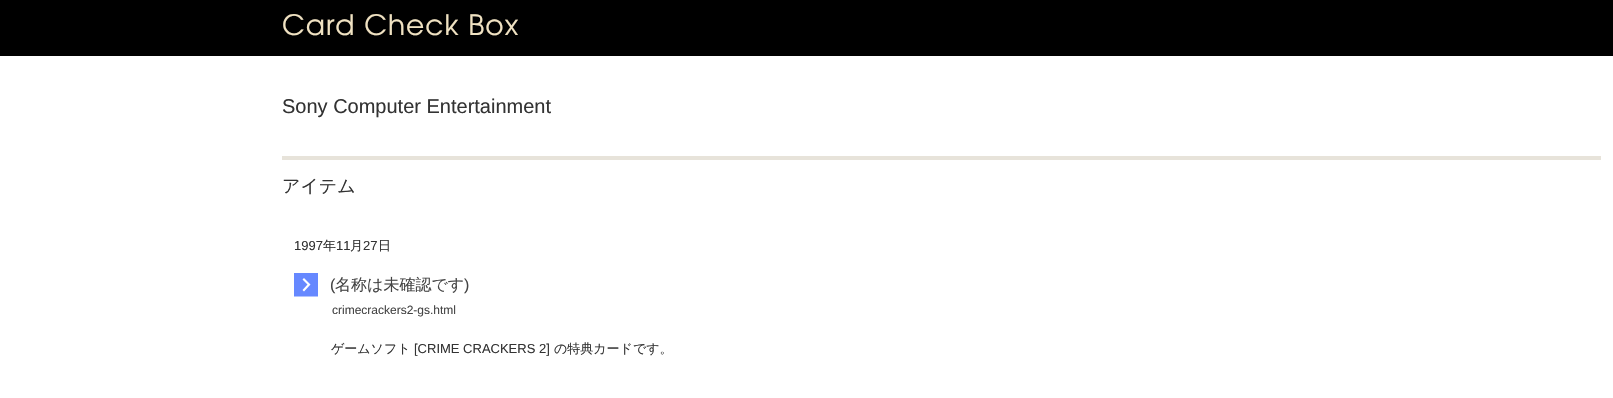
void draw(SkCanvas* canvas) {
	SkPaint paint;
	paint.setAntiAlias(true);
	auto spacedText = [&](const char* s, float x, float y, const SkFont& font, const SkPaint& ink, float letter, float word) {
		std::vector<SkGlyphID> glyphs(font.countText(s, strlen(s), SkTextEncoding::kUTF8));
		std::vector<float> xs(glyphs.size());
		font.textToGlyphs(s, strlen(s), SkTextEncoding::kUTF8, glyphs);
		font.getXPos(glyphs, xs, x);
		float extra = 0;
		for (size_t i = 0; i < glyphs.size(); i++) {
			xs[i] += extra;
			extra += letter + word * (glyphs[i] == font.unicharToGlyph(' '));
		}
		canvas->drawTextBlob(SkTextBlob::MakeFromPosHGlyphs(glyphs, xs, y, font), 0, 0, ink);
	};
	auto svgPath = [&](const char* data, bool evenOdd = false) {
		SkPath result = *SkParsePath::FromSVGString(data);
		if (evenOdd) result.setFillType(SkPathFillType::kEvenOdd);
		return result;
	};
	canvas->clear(0xffffffff);
	paint.setColor(0xff000000);
	canvas->drawRect(SkRect::MakeXYWH(0, 0, 1613, 56), paint);
	SkFont f1(fontMgr->matchFamilyStyle("TeX Gyre Adventor", SkFontStyle::Normal()), 28);
	f1.setSubpixel(true);
	paint.setColor(0xfff0e2c2);
	spacedText("Card Check Box", 282, 35, f1, paint, 1, 0);
	SkFont f2(fontMgr->matchFamilyStyle("Liberation Sans", SkFontStyle::Normal()), 20);
	f2.setSubpixel(true);
	paint.setColor(0xff333333);
	canvas->drawString("Sony Computer Entertainment", 282, 113, f2, paint);
	paint.setColor(0xffe7e3da);
	canvas->drawRect(SkRect::MakeXYWH(282, 156, 1319, 4), paint);
	SkFont f3(fontMgr->matchFamilyStyle("WenQuanYi Zen Hei", SkFontStyle(500, SkFontStyle::kNormal_Width, SkFontStyle::kUpright_Slant)), 18);
	f3.setSubpixel(true);
	paint.setColor(0xff333333);
	canvas->drawString("アイテム", 282, 192, f3, paint);
	SkFont f4(fontMgr->matchFamilyStyle("Liberation Sans", SkFontStyle::Normal()), 13);
	f4.setSubpixel(true);
	canvas->drawString("1997", 294, 250, f4, paint);
	SkFont f5(fontMgr->matchFamilyStyle("WenQuanYi Zen Hei", SkFontStyle(500, SkFontStyle::kNormal_Width, SkFontStyle::kUpright_Slant)), 13);
	f5.setSubpixel(true);
	canvas->drawString("年", 323, 250, f5, paint);
	canvas->drawString("11", 336, 250, f4, paint);
	canvas->drawString("月", 350, 250, f5, paint);
	canvas->drawString("27", 363, 250, f4, paint);
	canvas->drawString("日", 378, 250, f5, paint);
	paint.setColor(0xff6688ff);
	canvas->drawPath(svgPath("M294 273V296.5H318V273ZM302.5 279.5L304 278L310.5 284.5L304 291.5L302.5 290L307.5 284.5Z", true), paint);
	SkFont f6(fontMgr->matchFamilyStyle("Liberation Sans", SkFontStyle::Normal()), 16);
	f6.setSubpixel(true);
	paint.setColor(0xff444444);
	canvas->drawString("(", 330, 290, f6, paint);
	SkFont f7(fontMgr->matchFamilyStyle("WenQuanYi Zen Hei", SkFontStyle(500, SkFontStyle::kNormal_Width, SkFontStyle::kUpright_Slant)), 16);
	f7.setSubpixel(true);
	canvas->drawString("名称は未確認です", 335, 290, f7, paint);
	canvas->drawString(")", 464, 290, f6, paint);
	SkFont f8(fontMgr->matchFamilyStyle("Liberation Sans", SkFontStyle::Normal()), 12);
	f8.setSubpixel(true);
	canvas->drawString("crimecrackers2-gs.html", 332, 314, f8, paint);
	paint.setColor(0xff333333);
	canvas->drawString("ゲームソフト", 331, 353, f5, paint);
	canvas->drawString("[CRIME CRACKERS 2]", 414, 353, f4, paint);
	canvas->drawString("の特典カードです。", 554, 353, f5, paint);
}
